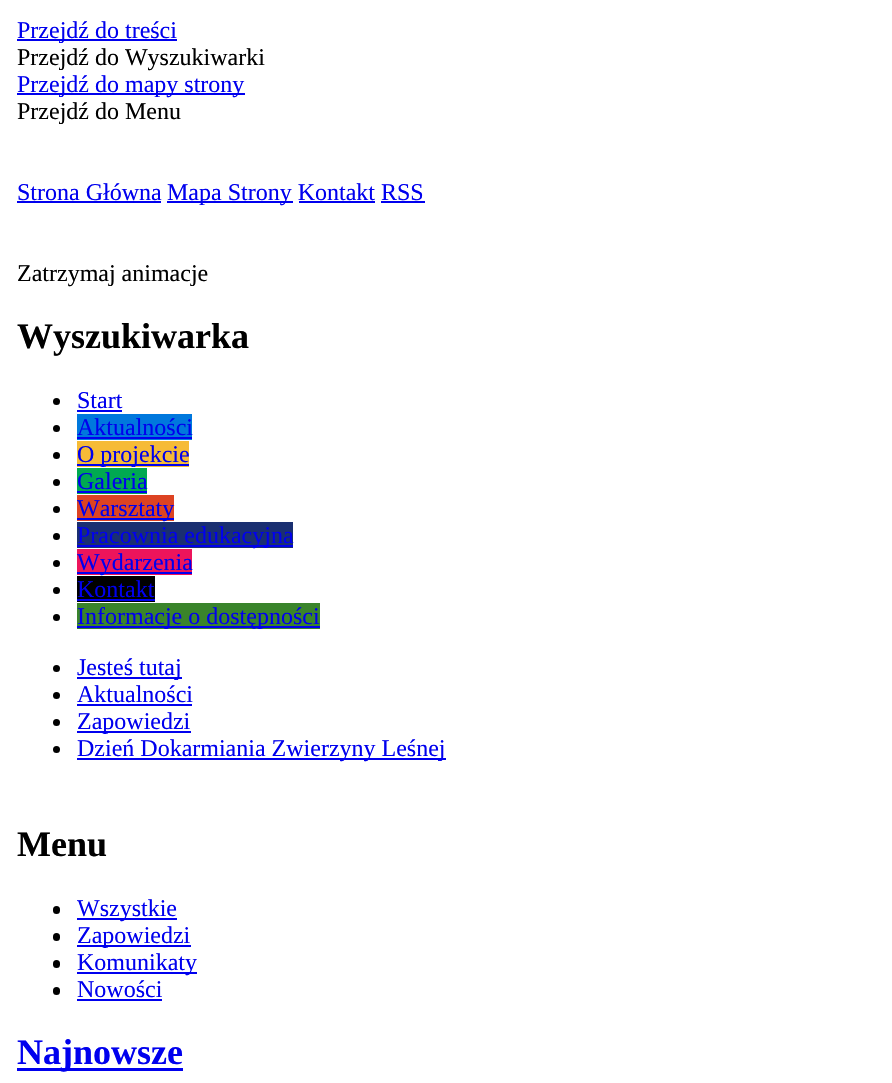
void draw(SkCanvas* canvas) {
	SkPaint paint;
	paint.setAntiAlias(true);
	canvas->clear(0xffffffff);
	paint.setColor(0xff0000ee);
	canvas->drawRect(SkRect::MakeXYWH(17, 39, 160, 2), paint);
	SkFont f1(fontMgr->matchFamilyStyle("Liberation Serif", SkFontStyle::Normal()), 24);
	f1.setSubpixel(true);
	canvas->drawString("Przejdź do treści", 17, 38, f1, paint);
	paint.setColor(0xff000000);
	canvas->drawString("Przejdź do Wyszukiwarki", 17, 65, f1, paint);
	paint.setColor(0xff0000ee);
	canvas->drawRect(SkRect::MakeXYWH(17, 93, 228, 2), paint);
	canvas->drawString("Przejdź do mapy strony", 17, 92, f1, paint);
	paint.setColor(0xff000000);
	canvas->drawString("Przejdź do Menu", 17, 119, f1, paint);
	paint.setColor(0xff0000ee);
	canvas->drawString("Strona Główna", 17, 200, f1, paint);
	canvas->drawRect(SkRect::MakeXYWH(17, 201, 144, 2), paint);
	canvas->drawRect(SkRect::MakeXYWH(167, 201, 126, 2), paint);
	canvas->drawString("Mapa Strony Kontakt RSS", 167, 200, f1, paint);
	canvas->drawRect(SkRect::MakeXYWH(299, 201, 76, 2), paint);
	canvas->drawRect(SkRect::MakeXYWH(381, 201, 44, 2), paint);
	paint.setColor(0xff000000);
	canvas->drawString("Zatrzymaj animacje", 17, 281, f1, paint);
	SkFont f2(fontMgr->matchFamilyStyle("Liberation Serif", SkFontStyle::Bold()), 36);
	f2.setSubpixel(true);
	canvas->drawString("Wyszukiwarka", 17, 348, f2, paint);
	canvas->drawCircle(56.5, 401.5, 3.5, paint);
	paint.setColor(0xff0000ee);
	canvas->drawString("Start", 77, 408, f1, paint);
	canvas->drawRect(SkRect::MakeXYWH(77, 410, 45, 2), paint);
	paint.setColor(0xff000000);
	canvas->drawCircle(56.5, 428.5, 3.5, paint);
	paint.setColor(0xff0078dd);
	canvas->drawRect(SkRect::MakeXYWH(77, 414, 115, 26), paint);
	paint.setColor(0xff0000ee);
	canvas->drawString("Aktualności", 77, 435, f1, paint);
	canvas->drawRect(SkRect::MakeXYWH(77, 437, 115, 2), paint);
	paint.setColor(0xff000000);
	canvas->drawCircle(56.5, 455.5, 3.5, paint);
	paint.setColor(0xfff6bb36);
	canvas->drawRect(SkRect::MakeXYWH(77, 441, 112, 26), paint);
	paint.setColor(0xff0000ee);
	canvas->drawRect(SkRect::MakeXYWH(77, 464, 112, 2), paint);
	canvas->drawString("O projekcie", 77, 462, f1, paint);
	paint.setColor(0xff000000);
	canvas->drawCircle(56.5, 482.5, 3.5, paint);
	paint.setColor(0xff00a951);
	canvas->drawRect(SkRect::MakeXYWH(77, 468, 70, 26), paint);
	paint.setColor(0xff0000ee);
	canvas->drawString("Galeria", 77, 489, f1, paint);
	canvas->drawRect(SkRect::MakeXYWH(77, 491, 70, 2), paint);
	paint.setColor(0xff000000);
	canvas->drawCircle(56.5, 509.5, 3.5, paint);
	paint.setColor(0xffdd4322);
	canvas->drawRect(SkRect::MakeXYWH(77, 495, 97, 26), paint);
	paint.setColor(0xff0000ee);
	canvas->drawRect(SkRect::MakeXYWH(77, 518, 97, 2), paint);
	canvas->drawString("Warsztaty", 77, 516, f1, paint);
	paint.setColor(0xff000000);
	canvas->drawCircle(56.5, 536.5, 3.5, paint);
	paint.setColor(0xff1a2f71);
	canvas->drawRect(SkRect::MakeXYWH(77, 522, 216, 26), paint);
	paint.setColor(0xff0000ee);
	canvas->drawRect(SkRect::MakeXYWH(77, 545, 216, 2), paint);
	canvas->drawString("Pracownia edukacyjna", 77, 543, f1, paint);
	paint.setColor(0xff000000);
	canvas->drawCircle(56.5, 563.5, 3.5, paint);
	paint.setColor(0xffed145b);
	canvas->drawRect(SkRect::MakeXYWH(77, 549, 115, 26), paint);
	paint.setColor(0xff0000ee);
	canvas->drawRect(SkRect::MakeXYWH(77, 572, 115, 2), paint);
	canvas->drawString("Wydarzenia", 77, 570, f1, paint);
	paint.setColor(0xff000000);
	canvas->drawCircle(56.5, 590.5, 3.5, paint);
	canvas->drawRect(SkRect::MakeXYWH(77, 576, 78, 26), paint);
	paint.setColor(0xff0000ee);
	canvas->drawString("Kontakt", 77, 597, f1, paint);
	canvas->drawRect(SkRect::MakeXYWH(77, 599, 78, 2), paint);
	paint.setColor(0xff000000);
	canvas->drawCircle(56.5, 617.5, 3.5, paint);
	paint.setColor(0xff3a842b);
	canvas->drawRect(SkRect::MakeXYWH(77, 603, 243, 26), paint);
	paint.setColor(0xff0000ee);
	canvas->drawRect(SkRect::MakeXYWH(77, 626, 243, 2), paint);
	canvas->drawString("Informacje o dostępności", 77, 624, f1, paint);
	paint.setColor(0xff000000);
	canvas->drawCircle(56.5, 668.5, 3.5, paint);
	paint.setColor(0xff0000ee);
	canvas->drawRect(SkRect::MakeXYWH(77, 677, 105, 2), paint);
	canvas->drawString("Jesteś tutaj", 77, 675, f1, paint);
	paint.setColor(0xff000000);
	canvas->drawCircle(56.5, 695.5, 3.5, paint);
	paint.setColor(0xff0000ee);
	canvas->drawString("Aktualności", 77, 702, f1, paint);
	canvas->drawRect(SkRect::MakeXYWH(77, 704, 115, 2), paint);
	paint.setColor(0xff000000);
	canvas->drawCircle(56.5, 722.5, 3.5, paint);
	paint.setColor(0xff0000ee);
	canvas->drawRect(SkRect::MakeXYWH(77, 731, 114, 2), paint);
	canvas->drawString("Zapowiedzi", 77, 729, f1, paint);
	paint.setColor(0xff000000);
	canvas->drawCircle(56.5, 749.5, 3.5, paint);
	paint.setColor(0xff0000ee);
	canvas->drawRect(SkRect::MakeXYWH(77, 758, 369, 2), paint);
	canvas->drawString("Dzień Dokarmiania Zwierzyny Leśnej", 77, 756, f1, paint);
	paint.setColor(0xff000000);
	canvas->drawString("Menu", 17, 856, f2, paint);
	canvas->drawRoundRect(SkRect::MakeXYWH(53, 906, 7, 8), 3.5, 3.5, paint);
	paint.setColor(0xff0000ee);
	canvas->drawRect(SkRect::MakeXYWH(77, 918, 100, 2), paint);
	canvas->drawString("Wszystkie", 77, 916, f1, paint);
	paint.setColor(0xff000000);
	canvas->drawRoundRect(SkRect::MakeXYWH(53, 933, 7, 8), 3.5, 3.5, paint);
	paint.setColor(0xff0000ee);
	canvas->drawRect(SkRect::MakeXYWH(77, 945, 114, 2), paint);
	canvas->drawString("Zapowiedzi", 77, 943, f1, paint);
	paint.setColor(0xff000000);
	canvas->drawRoundRect(SkRect::MakeXYWH(53, 960, 7, 8), 3.5, 3.5, paint);
	paint.setColor(0xff0000ee);
	canvas->drawRect(SkRect::MakeXYWH(77, 972, 120, 2), paint);
	canvas->drawString("Komunikaty", 77, 970, f1, paint);
	paint.setColor(0xff000000);
	canvas->drawRoundRect(SkRect::MakeXYWH(53, 987, 7, 8), 3.5, 3.5, paint);
	paint.setColor(0xff0000ee);
	canvas->drawString("Nowości", 77, 997, f1, paint);
	canvas->drawRect(SkRect::MakeXYWH(77, 999, 85, 2), paint);
	canvas->drawRect(SkRect::MakeXYWH(17, 1068, 166, 3), paint);
	canvas->drawString("Najnowsze", 17, 1064, f2, paint);
}
